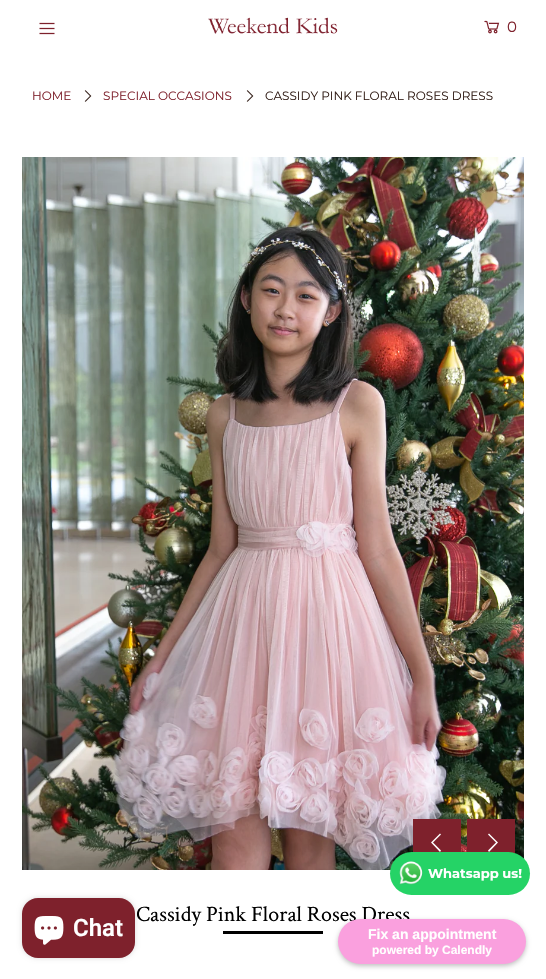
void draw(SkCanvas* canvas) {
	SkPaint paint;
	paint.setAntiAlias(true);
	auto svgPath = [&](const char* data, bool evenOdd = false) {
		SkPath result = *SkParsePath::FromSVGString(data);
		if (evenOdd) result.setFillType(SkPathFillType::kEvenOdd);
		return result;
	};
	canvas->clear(0xffffffff);
	canvas->drawImageRect(SkImages::DeferredFromEncodedData(SkData::MakeFromFileName("img1.png")), SkRect::MakeXYWH(39, 22, 16, 13), SkSamplingOptions());
	canvas->drawImageRect(SkImages::DeferredFromEncodedData(SkData::MakeFromFileName("img2.png")), SkRect::MakeXYWH(208, 17, 130, 17), SkSamplingOptions());
	canvas->drawImageRect(SkImages::DeferredFromEncodedData(SkData::MakeFromFileName("img3.png")), SkRect::MakeXYWH(484, 20, 16, 14), SkSamplingOptions());
	SkFont f1(fontMgr->matchFamilyStyle("Montserrat", SkFontStyle::Normal()), 15);
	f1.setSubpixel(true);
	paint.setColor(0xff7e212c);
	canvas->drawString("0", 507, 32, f1, paint);
	SkFont f2(fontMgr->matchFamilyStyle("Montserrat", SkFontStyle::Normal()), 12);
	f2.setSubpixel(true);
	canvas->drawString("HOME", 32, 100, f2, paint);
	canvas->drawImageRect(SkImages::DeferredFromEncodedData(SkData::MakeFromFileName("img4.png")), SkRect::MakeXYWH(84, 90, 8, 12), SkSamplingOptions());
	canvas->drawString("SPECIAL OCCASIONS", 103, 100, f2, paint);
	canvas->drawImageRect(SkImages::DeferredFromEncodedData(SkData::MakeFromFileName("img4.png")), SkRect::MakeXYWH(246, 90, 8, 12), SkSamplingOptions());
	paint.setColor(0xff321e17);
	canvas->drawString("CASSIDY PINK FLORAL ROSES DRESS", 265, 100, f2, paint);
	canvas->drawImageRect(SkImages::DeferredFromEncodedData(SkData::MakeFromFileName("img5.png")), SkRect::MakeXYWH(22, 157, 502, 713), SkSamplingOptions());
	paint.setColor(0xff7e212c);
	canvas->drawRect(SkRect::MakeXYWH(413, 819, 48, 33), paint);
	paint.setColor(0xffffffff);
	canvas->drawPath(svgPath("M440 833.5L441 834.5L433 842.5L441 850.5L440 852L431 842.5Z"), paint);
	paint.setColor(0xff7e212c);
	canvas->drawRect(SkRect::MakeXYWH(467, 819, 48, 34), paint);
	paint.setColor(0xffffffff);
	canvas->drawPath(svgPath("M489 833.5L498 842.5L489 852L488 850.5L496 842.5L488 834.5Z"), paint);
	SkFont f3(fontMgr->matchFamilyStyle("Crimson Text", SkFontStyle::Normal()), 22);
	f3.setSubpixel(true);
	paint.setColor(0xff000000);
	canvas->drawString("Cassidy Pink Floral Roses Dress", 136, 921, f3, paint);
	canvas->drawRect(SkRect::MakeXYWH(223, 931, 100, 3), paint);
	paint.setColor(0xff25d366);
	canvas->drawRoundRect(SkRect::MakeXYWH(390, 852, 140, 43), 21.5, 21.5, paint);
	canvas->drawImageRect(SkImages::DeferredFromEncodedData(SkData::MakeFromFileName("img6.png")), SkRect::MakeXYWH(399, 861, 24, 24), SkSamplingOptions());
	SkFont f4(fontMgr->matchFamilyStyle("Montserrat", SkFontStyle::Bold()), 13);
	f4.setSubpixel(true);
	paint.setColor(0xffffffff);
	canvas->drawString("Whatsapp us!", 428, 878, f4, paint);
	paint.setColor(0x26000000);
	paint.setMaskFilter(SkMaskFilter::MakeBlur(kNormal_SkBlurStyle, 2.5));
	canvas->drawRoundRect(SkRect::MakeXYWH(22, 898, 113, 60), 16, 16, paint);
	paint.setMaskFilter(nullptr);
	paint.setColor(0xff7e212c);
	canvas->drawRoundRect(SkRect::MakeXYWH(22, 898, 113, 60), 16, 16, paint);
	canvas->drawImageRect(SkImages::DeferredFromEncodedData(SkData::MakeFromFileName("img7.png")), SkRect::MakeXYWH(34, 916, 30, 29), SkSamplingOptions());
	SkFont f5(fontMgr->matchFamilyStyle("Roboto", SkFontStyle(600, SkFontStyle::kNormal_Width, SkFontStyle::kUpright_Slant)), 24);
	f5.setSubpixel(true);
	paint.setColor(0xffffffff);
	canvas->drawString("Chat", 73, 936, f5, paint);
	paint.setColor(0x40000000);
	paint.setMaskFilter(SkMaskFilter::MakeBlur(kNormal_SkBlurStyle, 2.5));
	canvas->drawRoundRect(SkRect::MakeXYWH(338, 921, 188, 45), 22.5, 22.5, paint);
	paint.setMaskFilter(nullptr);
	paint.setColor(0xfffaa0de);
	canvas->drawRoundRect(SkRect::MakeXYWH(338, 919, 188, 45), 22.5, 22.5, paint);
	SkFont f6(fontMgr->matchFamilyStyle("Liberation Sans", SkFontStyle::Bold()), 14);
	f6.setSubpixel(true);
	paint.setColor(0xffffffff);
	canvas->drawString("Fix an appointment", 368, 939, f6, paint);
	SkFont f7(fontMgr->matchFamilyStyle("Liberation Sans", SkFontStyle::Bold()), 12);
	f7.setSubpixel(true);
	canvas->drawString("powered by Calendly", 372, 954, f7, paint);
}
